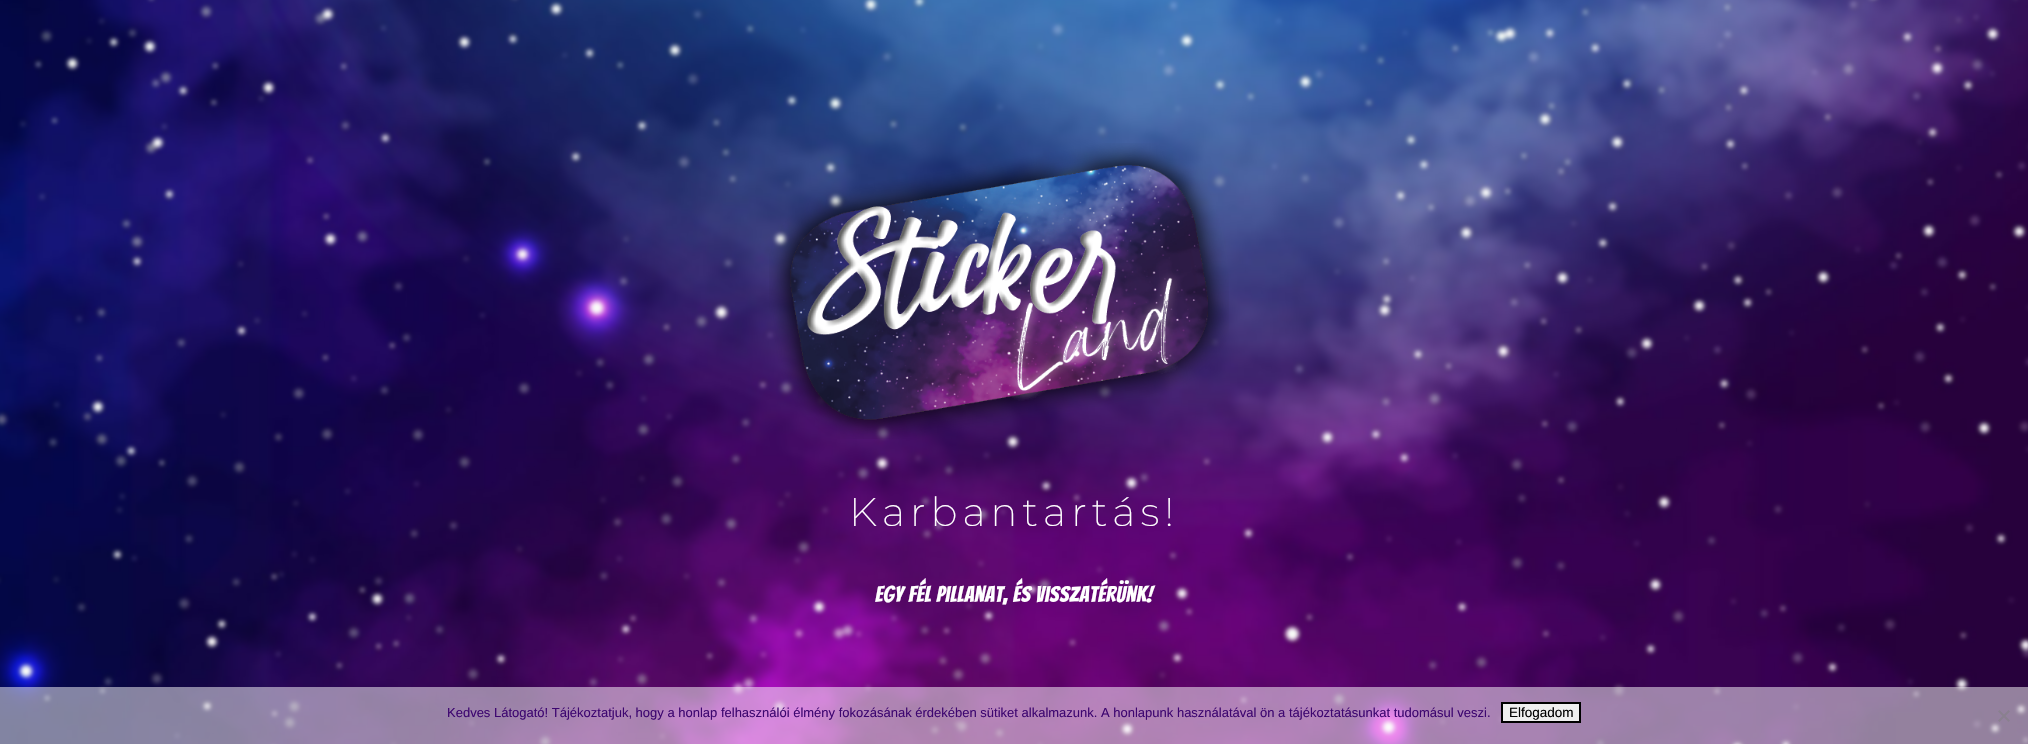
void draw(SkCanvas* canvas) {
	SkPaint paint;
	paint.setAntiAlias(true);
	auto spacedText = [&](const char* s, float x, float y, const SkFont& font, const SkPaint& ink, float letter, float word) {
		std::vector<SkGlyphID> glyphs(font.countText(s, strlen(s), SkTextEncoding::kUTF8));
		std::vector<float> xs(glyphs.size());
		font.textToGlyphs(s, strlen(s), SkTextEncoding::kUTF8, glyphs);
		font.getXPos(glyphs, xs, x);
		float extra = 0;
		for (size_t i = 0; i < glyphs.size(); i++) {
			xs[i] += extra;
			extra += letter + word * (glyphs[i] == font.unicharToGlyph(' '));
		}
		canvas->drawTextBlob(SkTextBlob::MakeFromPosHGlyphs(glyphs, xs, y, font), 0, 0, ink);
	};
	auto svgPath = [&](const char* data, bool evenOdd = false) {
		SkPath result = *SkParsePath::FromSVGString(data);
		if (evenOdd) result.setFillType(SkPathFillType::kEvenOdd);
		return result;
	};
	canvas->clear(0xffffffff);
	canvas->drawImageRect(SkImages::DeferredFromEncodedData(SkData::MakeFromFileName("img1.png")), SkRect::MakeXYWH(0, 0, 2028, 744), SkSamplingOptions());
	canvas->drawImageRect(SkImages::DeferredFromEncodedData(SkData::MakeFromFileName("img2.png")), SkRect::MakeXYWH(769, 143, 460, 296), SkSamplingOptions());
	SkFont f1(fontMgr->matchFamilyStyle("Montserrat", SkFontStyle(100, SkFontStyle::kNormal_Width, SkFontStyle::kUpright_Slant)), 40);
	f1.setSubpixel(true);
	paint.setColor(0xffffffff);
	spacedText("Karbantartás!", 849, 526, f1, paint, 5, 0);
	SkFont f2(fontMgr->matchFamilyStyle("Bangers", SkFontStyle::Normal()), 22);
	f2.setSubpixel(true);
	spacedText("Egy fél pillanat, és visszatérünk!", 875, 602, f2, paint, 0.5, 0);
	paint.setColor(0x80ffffff);
	canvas->drawRect(SkRect::MakeXYWH(0, 687, 2028, 57), paint);
	SkFont f3(fontMgr->matchFamilyStyle("Liberation Sans", SkFontStyle::Normal()), 13);
	f3.setSubpixel(true);
	paint.setColor(0xff3d0670);
	canvas->drawString("Kedves Látogató! Tájékoztatjuk, hogy a honlap felhasználói élmény fokozásának érdekében sütiket alkalmazunk. A honlapunk használatával ön a tájékoztatásunkat tudomásul veszi.", 447, 717, f3, paint);
	paint.setColor(0xffefefef);
	canvas->drawRect(SkRect::MakeXYWH(1502, 703, 78, 19), paint);
	paint.setStroke(true);
	paint.setStrokeWidth(2);
	paint.setColor(0xff000000);
	canvas->drawRect(SkRect::MakeXYWH(1502, 703, 78, 19), paint);
	SkFont f4(fontMgr->matchFamilyStyle("Liberation Sans", SkFontStyle::Normal()), 13.5);
	f4.setSubpixel(true);
	paint.setStroke(false);
	canvas->drawString("Elfogadom", 1509, 717, f4, paint);
	paint.setColor(0xff8a808f);
	canvas->drawPath(svgPath("M2008.5 710L2010 711.5L1999.5 722L1998 720.5Z"), paint);
	canvas->drawPath(svgPath("M1998 711.5L1999.5 710L2010 720.5L2008.5 722Z"), paint);
}
